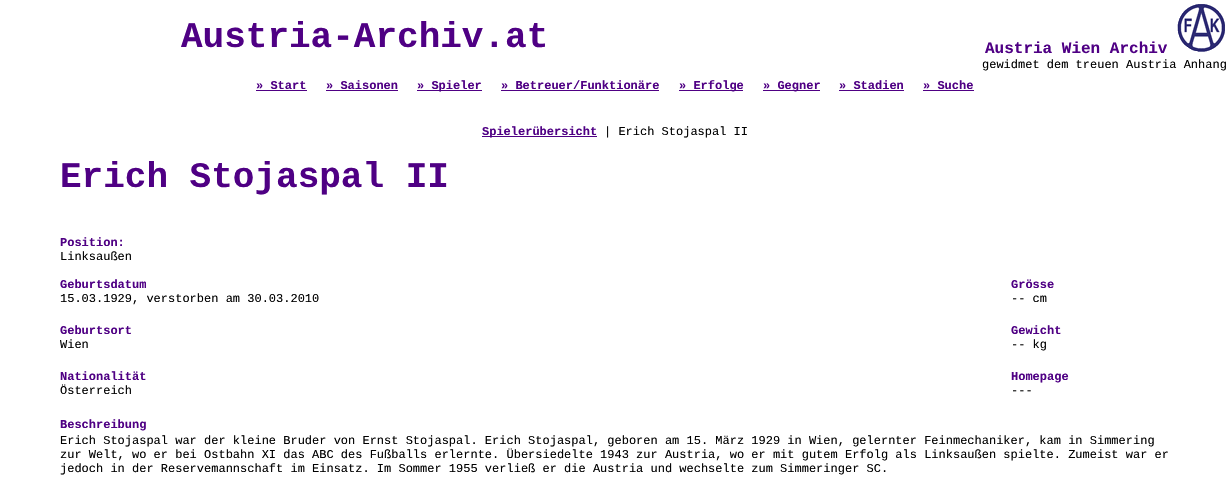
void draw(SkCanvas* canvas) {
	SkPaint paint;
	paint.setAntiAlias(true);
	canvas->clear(0xffffffff);
	SkFont f1(fontMgr->matchFamilyStyle("Liberation Mono", SkFontStyle::Bold()), 36);
	f1.setSubpixel(true);
	paint.setColor(0xff4f0084);
	canvas->drawString("Austria-Archiv.at", 181, 47, f1, paint);
	SkFont f2(fontMgr->matchFamilyStyle("Liberation Mono", SkFontStyle::Bold()), 16);
	f2.setSubpixel(true);
	canvas->drawString("Austria Wien Archiv", 985, 53, f2, paint);
	canvas->drawImageRect(SkImages::DeferredFromEncodedData(SkData::MakeFromFileName("img1.png")), SkRect::MakeXYWH(1177, 4, 48, 48), SkSamplingOptions());
	SkFont f3(fontMgr->matchFamilyStyle("Liberation Mono", SkFontStyle::Normal()), 12);
	f3.setSubpixel(true);
	paint.setColor(0xff000000);
	canvas->drawString("gewidmet dem treuen Austria Anhang", 982, 68, f3, paint);
	SkFont f4(fontMgr->matchFamilyStyle("Liberation Mono", SkFontStyle::Bold()), 12);
	f4.setSubpixel(true);
	paint.setColor(0xff4f0084);
	canvas->drawString("» Start", 256, 89, f4, paint);
	canvas->drawRect(SkRect::MakeXYWH(256, 90, 51, 1), paint);
	canvas->drawString("» Saisonen", 326, 89, f4, paint);
	canvas->drawRect(SkRect::MakeXYWH(326, 90, 72, 1), paint);
	canvas->drawRect(SkRect::MakeXYWH(417, 90, 65, 1), paint);
	canvas->drawString("» Spieler", 417, 89, f4, paint);
	canvas->drawString("» Betreuer/Funktionäre", 501, 89, f4, paint);
	canvas->drawRect(SkRect::MakeXYWH(501, 90, 158, 1), paint);
	canvas->drawRect(SkRect::MakeXYWH(679, 90, 64, 1), paint);
	canvas->drawString("» Erfolge", 679, 89, f4, paint);
	canvas->drawRect(SkRect::MakeXYWH(763, 90, 57, 1), paint);
	canvas->drawString("» Gegner", 763, 89, f4, paint);
	canvas->drawString("» Stadien", 839, 89, f4, paint);
	canvas->drawRect(SkRect::MakeXYWH(839, 90, 65, 1), paint);
	canvas->drawString("» Suche", 923, 89, f4, paint);
	canvas->drawRect(SkRect::MakeXYWH(923, 90, 51, 1), paint);
	canvas->drawRect(SkRect::MakeXYWH(482, 136, 115, 1), paint);
	canvas->drawString("Spielerübersicht", 482, 135, f4, paint);
	paint.setColor(0xff000000);
	canvas->drawString("| Erich Stojaspal II", 604, 135, f3, paint);
	paint.setColor(0xff4f0084);
	canvas->drawString("Erich Stojaspal II", 60, 187, f1, paint);
	canvas->drawString("Position:", 60, 246, f4, paint);
	paint.setColor(0xff000000);
	canvas->drawString("Linksaußen", 60, 260, f3, paint);
	paint.setColor(0xff4f0084);
	canvas->drawString("Geburtsdatum", 60, 288, f4, paint);
	canvas->drawString("Grösse", 1011, 288, f4, paint);
	paint.setColor(0xff000000);
	canvas->drawString("15.03.1929, verstorben am 30.03.2010", 60, 302, f3, paint);
	canvas->drawString("-- cm", 1011, 302, f3, paint);
	paint.setColor(0xff4f0084);
	canvas->drawString("Geburtsort", 60, 334, f4, paint);
	canvas->drawString("Gewicht", 1011, 334, f4, paint);
	paint.setColor(0xff000000);
	canvas->drawString("Wien", 60, 348, f3, paint);
	canvas->drawString("-- kg", 1011, 348, f3, paint);
	paint.setColor(0xff4f0084);
	canvas->drawString("Nationalität", 60, 380, f4, paint);
	canvas->drawString("Homepage", 1011, 380, f4, paint);
	paint.setColor(0xff000000);
	canvas->drawString("Österreich", 60, 394, f3, paint);
	canvas->drawString("---", 1011, 394, f3, paint);
	paint.setColor(0xff4f0084);
	canvas->drawString("Beschreibung", 60, 428, f4, paint);
	paint.setColor(0xff000000);
	canvas->drawString("Erich Stojaspal war der kleine Bruder von Ernst Stojaspal. Erich Stojaspal, geboren am 15. März 1929 in Wien, gelernter Feinmechaniker, kam in Simmering", 60, 444, f3, paint);
	canvas->drawString("zur Welt, wo er bei Ostbahn XI das ABC des Fußballs erlernte. Übersiedelte 1943 zur Austria, wo er mit gutem Erfolg als Linksaußen spielte. Zumeist war er", 60, 458, f3, paint);
	canvas->drawString("jedoch in der Reservemannschaft im Einsatz. Im Sommer 1955 verließ er die Austria und wechselte zum Simmeringer SC.", 60, 472, f3, paint);
}
